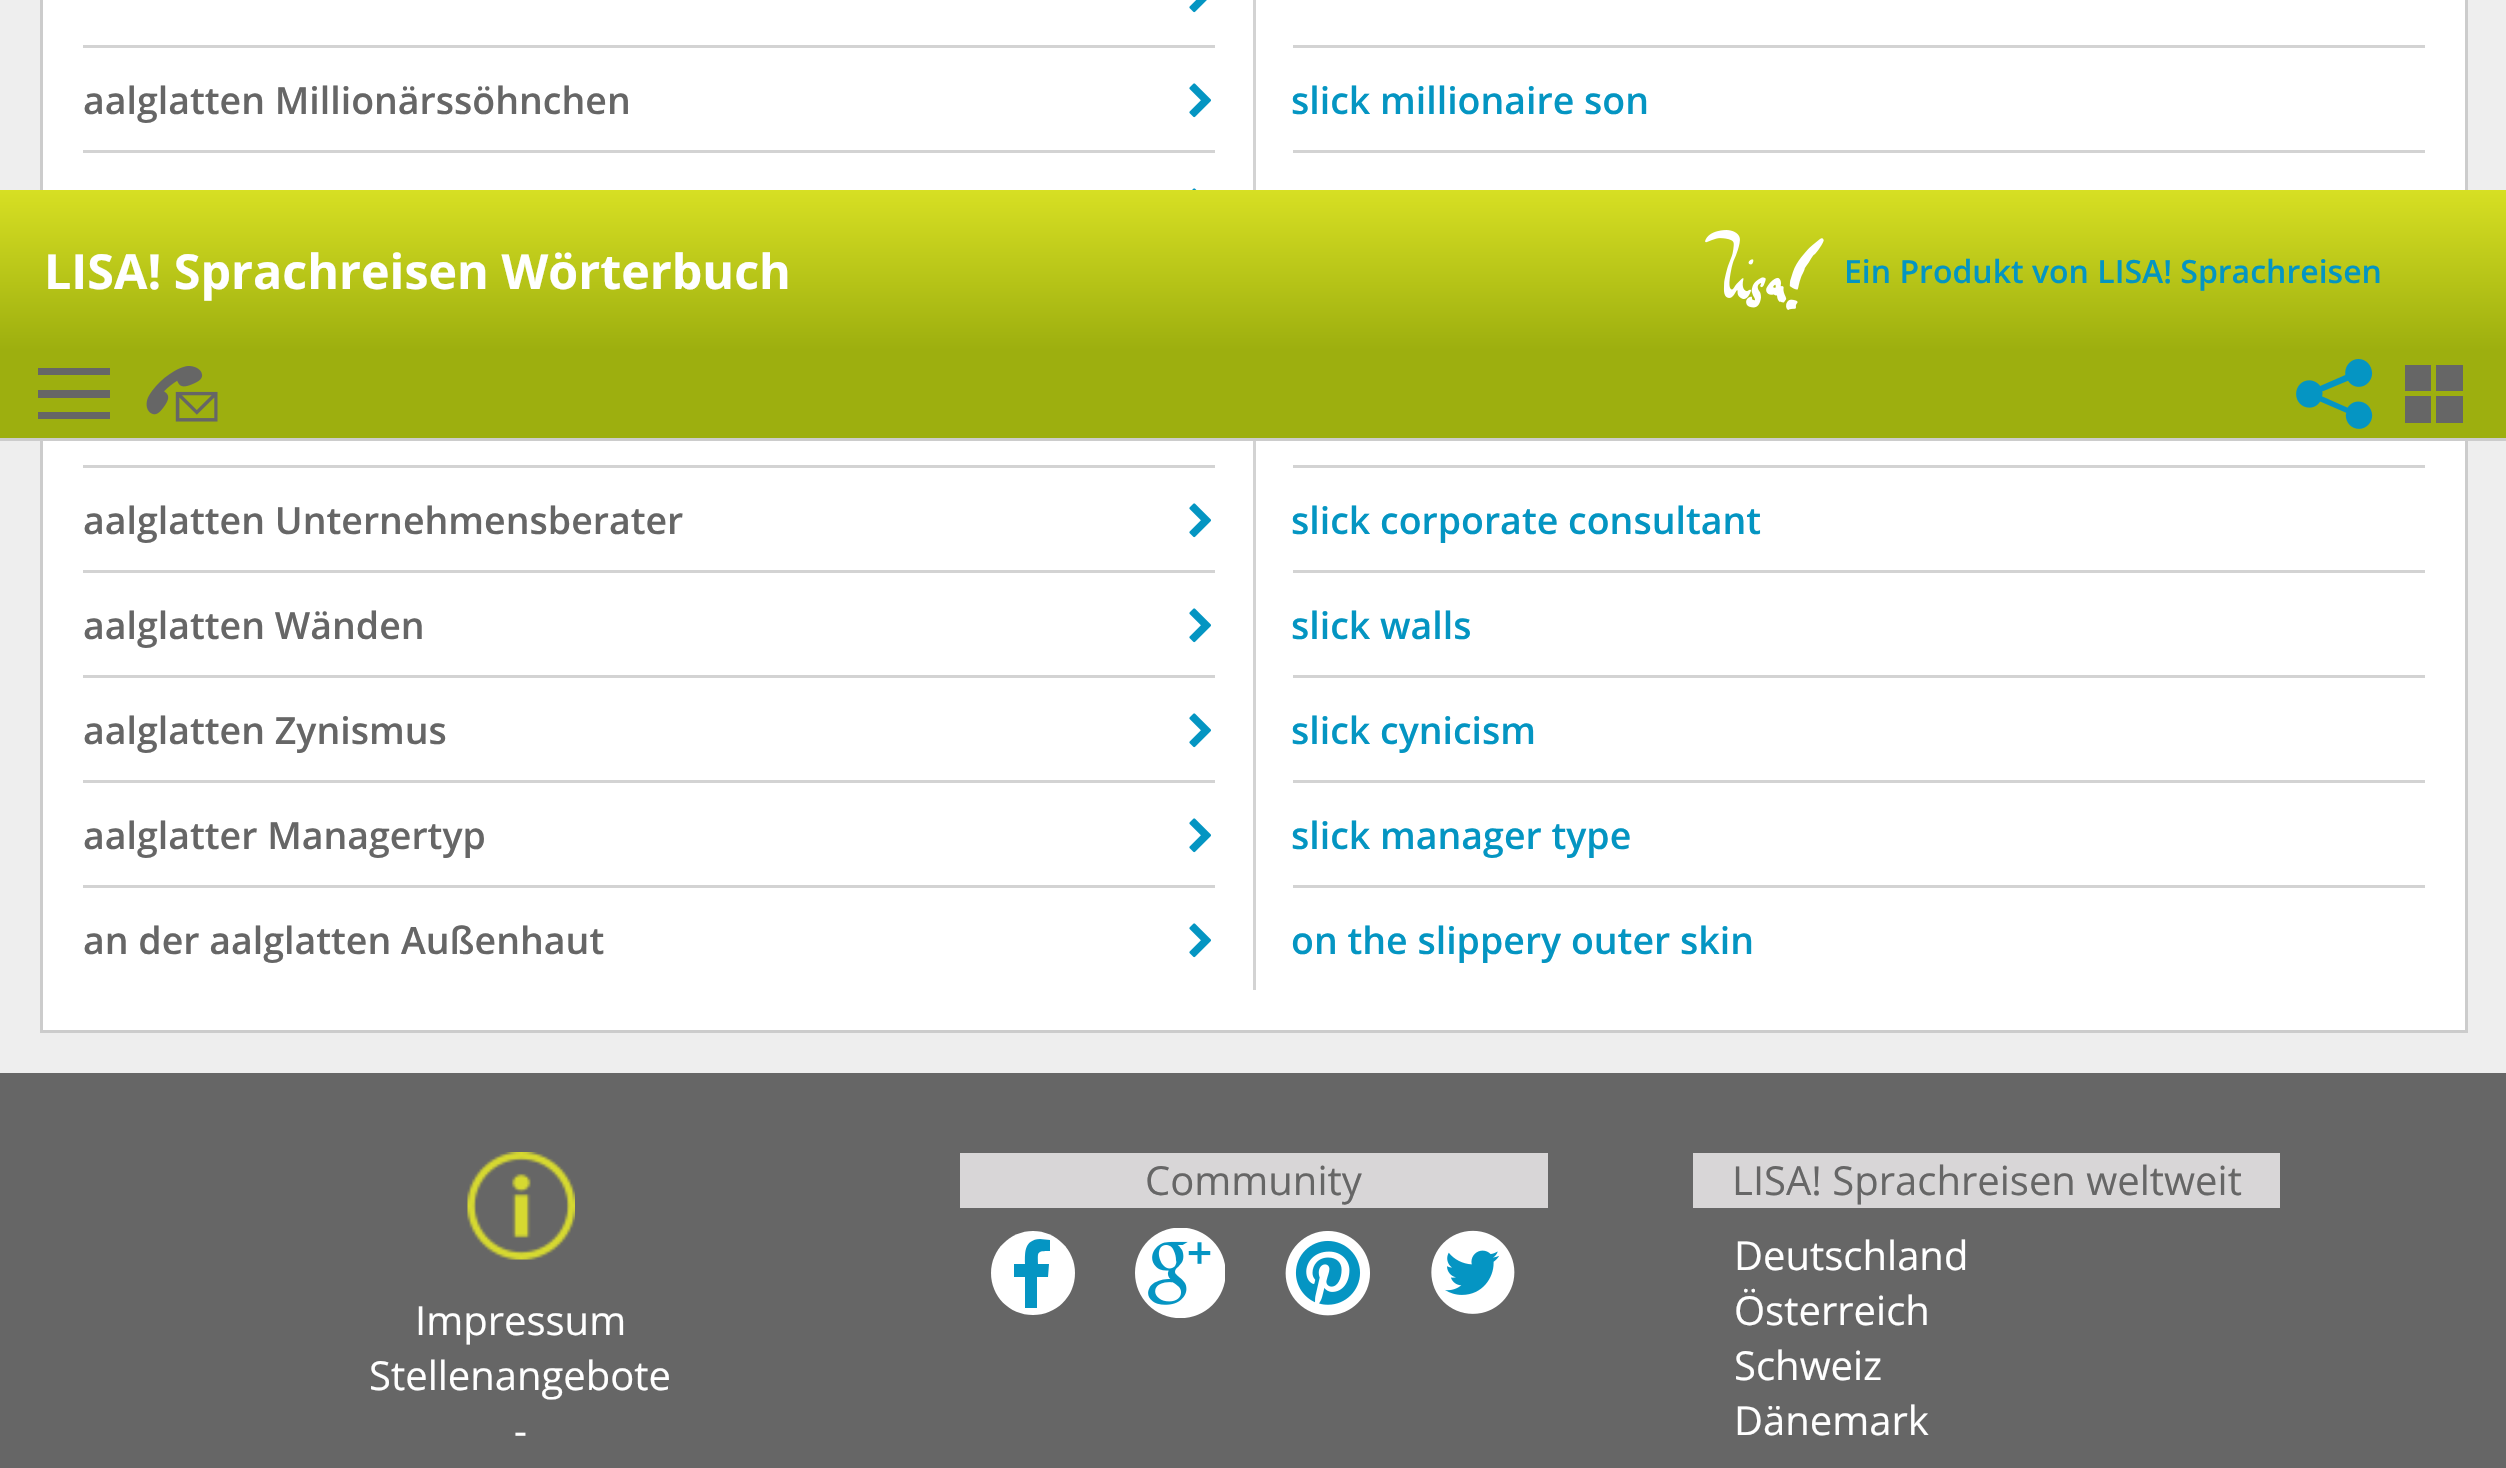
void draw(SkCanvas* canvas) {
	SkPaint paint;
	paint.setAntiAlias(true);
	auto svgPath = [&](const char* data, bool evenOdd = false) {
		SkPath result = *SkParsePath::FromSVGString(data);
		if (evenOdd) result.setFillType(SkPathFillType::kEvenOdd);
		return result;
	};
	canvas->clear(0xffeeeeee);
	paint.setColor(0xffffffff);
	canvas->drawRect(SkRect::MakeXYWH(41.5, -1.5, 2425, 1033), paint);
	paint.setStroke(true);
	paint.setStrokeWidth(3);
	paint.setColor(0xffcccccc);
	canvas->drawRect(SkRect::MakeXYWH(41.5, -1.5, 2425, 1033), paint);
	paint.setStroke(false);
	paint.setColor(0xffd3d3d3);
	canvas->drawRect(SkRect::MakeXYWH(1253, 0, 3, 190), paint);
	canvas->drawImageRect(SkImages::DeferredFromEncodedData(SkData::MakeFromFileName("img1.png")), SkRect::MakeXYWH(1189, 0, 18, 13), SkSamplingOptions());
	canvas->drawRect(SkRect::MakeXYWH(83, 45, 1132, 3), paint);
	SkFont f1(fontMgr->matchFamilyStyle("Open Sans", SkFontStyle(600, SkFontStyle::kNormal_Width, SkFontStyle::kUpright_Slant)), 37.5);
	f1.setSubpixel(true);
	paint.setColor(0xff666666);
	canvas->drawString("aalglatten Millionärssöhnchen", 83, 114, f1, paint);
	canvas->drawImageRect(SkImages::DeferredFromEncodedData(SkData::MakeFromFileName("img2.png")), SkRect::MakeXYWH(1189, 83, 22, 35), SkSamplingOptions());
	paint.setColor(0xffd3d3d3);
	canvas->drawRect(SkRect::MakeXYWH(1293, 45, 1132, 3), paint);
	paint.setColor(0xff0495c2);
	canvas->drawString("slick millionaire son", 1291, 114, f1, paint);
	paint.setColor(0xffd3d3d3);
	canvas->drawRect(SkRect::MakeXYWH(83, 150, 1132, 3), paint);
	canvas->drawImageRect(SkImages::DeferredFromEncodedData(SkData::MakeFromFileName("img3.png")), SkRect::MakeXYWH(1192, 188, 5, 2), SkSamplingOptions());
	canvas->drawRect(SkRect::MakeXYWH(1293, 150, 1132, 3), paint);
	canvas->drawRect(SkRect::MakeXYWH(1253, 441, 3, 549), paint);
	canvas->drawRect(SkRect::MakeXYWH(83, 465, 1132, 3), paint);
	paint.setColor(0xff666666);
	canvas->drawString("aalglatten Unternehmensberater", 83, 534, f1, paint);
	canvas->drawImageRect(SkImages::DeferredFromEncodedData(SkData::MakeFromFileName("img2.png")), SkRect::MakeXYWH(1189, 503, 22, 35), SkSamplingOptions());
	paint.setColor(0xffd3d3d3);
	canvas->drawRect(SkRect::MakeXYWH(1293, 465, 1132, 3), paint);
	paint.setColor(0xff0495c2);
	canvas->drawString("slick corporate consultant", 1291, 534, f1, paint);
	paint.setColor(0xffd3d3d3);
	canvas->drawRect(SkRect::MakeXYWH(83, 570, 1132, 3), paint);
	paint.setColor(0xff666666);
	canvas->drawString("aalglatten Wänden", 83, 639, f1, paint);
	canvas->drawImageRect(SkImages::DeferredFromEncodedData(SkData::MakeFromFileName("img2.png")), SkRect::MakeXYWH(1189, 608, 22, 35), SkSamplingOptions());
	paint.setColor(0xffd3d3d3);
	canvas->drawRect(SkRect::MakeXYWH(1293, 570, 1132, 3), paint);
	paint.setColor(0xff0495c2);
	canvas->drawString("slick walls", 1291, 639, f1, paint);
	paint.setColor(0xffd3d3d3);
	canvas->drawRect(SkRect::MakeXYWH(83, 675, 1132, 3), paint);
	paint.setColor(0xff666666);
	canvas->drawString("aalglatten Zynismus", 83, 744, f1, paint);
	canvas->drawImageRect(SkImages::DeferredFromEncodedData(SkData::MakeFromFileName("img2.png")), SkRect::MakeXYWH(1189, 713, 22, 35), SkSamplingOptions());
	paint.setColor(0xffd3d3d3);
	canvas->drawRect(SkRect::MakeXYWH(1293, 675, 1132, 3), paint);
	paint.setColor(0xff0495c2);
	canvas->drawString("slick cynicism", 1291, 744, f1, paint);
	paint.setColor(0xffd3d3d3);
	canvas->drawRect(SkRect::MakeXYWH(83, 780, 1132, 3), paint);
	paint.setColor(0xff666666);
	canvas->drawString("aalglatter Managertyp", 83, 849, f1, paint);
	canvas->drawImageRect(SkImages::DeferredFromEncodedData(SkData::MakeFromFileName("img2.png")), SkRect::MakeXYWH(1189, 818, 22, 35), SkSamplingOptions());
	paint.setColor(0xffd3d3d3);
	canvas->drawRect(SkRect::MakeXYWH(1293, 780, 1132, 3), paint);
	paint.setColor(0xff0495c2);
	canvas->drawString("slick manager type", 1291, 849, f1, paint);
	paint.setColor(0xffd3d3d3);
	canvas->drawRect(SkRect::MakeXYWH(83, 885, 1132, 3), paint);
	paint.setColor(0xff666666);
	canvas->drawString("an der aalglatten Außenhaut", 83, 954, f1, paint);
	canvas->drawImageRect(SkImages::DeferredFromEncodedData(SkData::MakeFromFileName("img2.png")), SkRect::MakeXYWH(1189, 923, 22, 35), SkSamplingOptions());
	paint.setColor(0xffd3d3d3);
	canvas->drawRect(SkRect::MakeXYWH(1293, 885, 1132, 3), paint);
	paint.setColor(0xff0495c2);
	canvas->drawString("on the slippery outer skin", 1291, 954, f1, paint);
	paint.setColor(0xffcccccc);
	canvas->drawRect(SkRect::MakeXYWH(0, 438, 2506, 3), paint);
	{
		const SkColor colors[] = {0xffd7df23, 0xff9daf0f};
		const float stops[] = {0, 1};
		const SkPoint ends[] = {{1254, 190}, {1254, 350}};
		paint.setShader(SkGradientShader::MakeLinear(ends, colors, stops, 2, SkTileMode::kClamp));
		paint.setAlpha(255);
	}
	canvas->drawRect(SkRect::MakeXYWH(0, 190, 2506, 160), paint);
	SkFont f2(fontMgr->matchFamilyStyle("Open Sans", SkFontStyle::Bold()), 48.4);
	f2.setSubpixel(true);
	paint.setShader(nullptr);
	paint.setColor(0xffffffff);
	canvas->drawString("LISA! Sprachreisen Wörterbuch", 44, 289, f2, paint);
	canvas->drawImageRect(SkImages::DeferredFromEncodedData(SkData::MakeFromFileName("img4.png")), SkRect::MakeXYWH(1705, 230, 119, 80), SkSamplingOptions());
	SkFont f3(fontMgr->matchFamilyStyle("Open Sans", SkFontStyle(600, SkFontStyle::kNormal_Width, SkFontStyle::kUpright_Slant)), 32);
	f3.setSubpixel(true);
	paint.setColor(0xff0495c2);
	canvas->drawString("Ein Produkt von LISA! Sprachreisen", 1844, 283, f3, paint);
	paint.setColor(0xff9daf0f);
	canvas->drawRect(SkRect::MakeXYWH(0, 350, 2506, 88), paint);
	paint.setColor(0xff666666);
	canvas->drawPath(svgPath("M110 368H38V375H110ZM38 390V398H110V390ZM38 419H110V412H38Z"), paint);
	canvas->drawImageRect(SkImages::DeferredFromEncodedData(SkData::MakeFromFileName("img5.png")), SkRect::MakeXYWH(146, 366, 72, 56), SkSamplingOptions());
	canvas->drawImageRect(SkImages::DeferredFromEncodedData(SkData::MakeFromFileName("img6.png")), SkRect::MakeXYWH(2296, 359, 77, 70), SkSamplingOptions());
	canvas->drawPath(svgPath("M2405 423H2431V396H2405ZM2436 423H2463V396H2436ZM2431 365H2405V391H2431ZM2436 365V391H2463V365Z"), paint);
	canvas->drawRect(SkRect::MakeXYWH(0, 1073, 2506, 395), paint);
	paint.setColor(0xffd8d6d7);
	canvas->drawRect(SkRect::MakeXYWH(960, 1153, 588, 55), paint);
	SkFont f4(fontMgr->matchFamilyStyle("Open Sans", SkFontStyle::Normal()), 40);
	f4.setSubpixel(true);
	paint.setColor(0xff666666);
	canvas->drawString("Community", 1145, 1195, f4, paint);
	paint.setColor(0xffffffff);
	canvas->drawPath(svgPath("M1033 1231C1056 1231 1075 1250 1075 1273C1075 1297 1056 1315 1033 1315C1009 1315 991 1296 991 1273C991 1250 1010 1231 1033 1231Z", true), paint);
	paint.setColor(0xff0595c3);
	canvas->drawPath(svgPath("M1048 1277L1049 1264H1038C1038 1252 1036 1251 1050 1251V1240L1040 1239C1024 1240 1025 1252 1025 1264H1014V1277H1025V1308H1037V1277Z"), paint);
	canvas->drawImageRect(SkImages::DeferredFromEncodedData(SkData::MakeFromFileName("img7.png")), SkRect::MakeXYWH(1135, 1228, 90, 90), SkSamplingOptions());
	canvas->drawImageRect(SkImages::DeferredFromEncodedData(SkData::MakeFromFileName("img8.png")), SkRect::MakeXYWH(1285, 1231, 85, 85), SkSamplingOptions());
	canvas->drawImageRect(SkImages::DeferredFromEncodedData(SkData::MakeFromFileName("img9.png")), SkRect::MakeXYWH(1431, 1230, 84, 84), SkSamplingOptions());
	paint.setColor(0xffd8d6d7);
	canvas->drawRect(SkRect::MakeXYWH(1693, 1153, 587, 55), paint);
	paint.setColor(0xff666666);
	canvas->drawString("LISA! Sprachreisen weltweit", 1732, 1195, f4, paint);
	paint.setColor(0xffffffff);
	canvas->drawString("Deutschland", 1734, 1270, f4, paint);
	canvas->drawString("Österreich", 1734, 1325, f4, paint);
	canvas->drawString("Schweiz", 1734, 1380, f4, paint);
	canvas->drawString("Dänemark", 1734, 1435, f4, paint);
	canvas->drawImageRect(SkImages::DeferredFromEncodedData(SkData::MakeFromFileName("img10.png")), SkRect::MakeXYWH(467, 1152, 108, 108), SkSamplingOptions());
	canvas->drawString("Impressum", 415, 1335, f4, paint);
	canvas->drawString("Stellenangebote", 369, 1390, f4, paint);
	canvas->drawString("-", 514, 1445, f4, paint);
}
